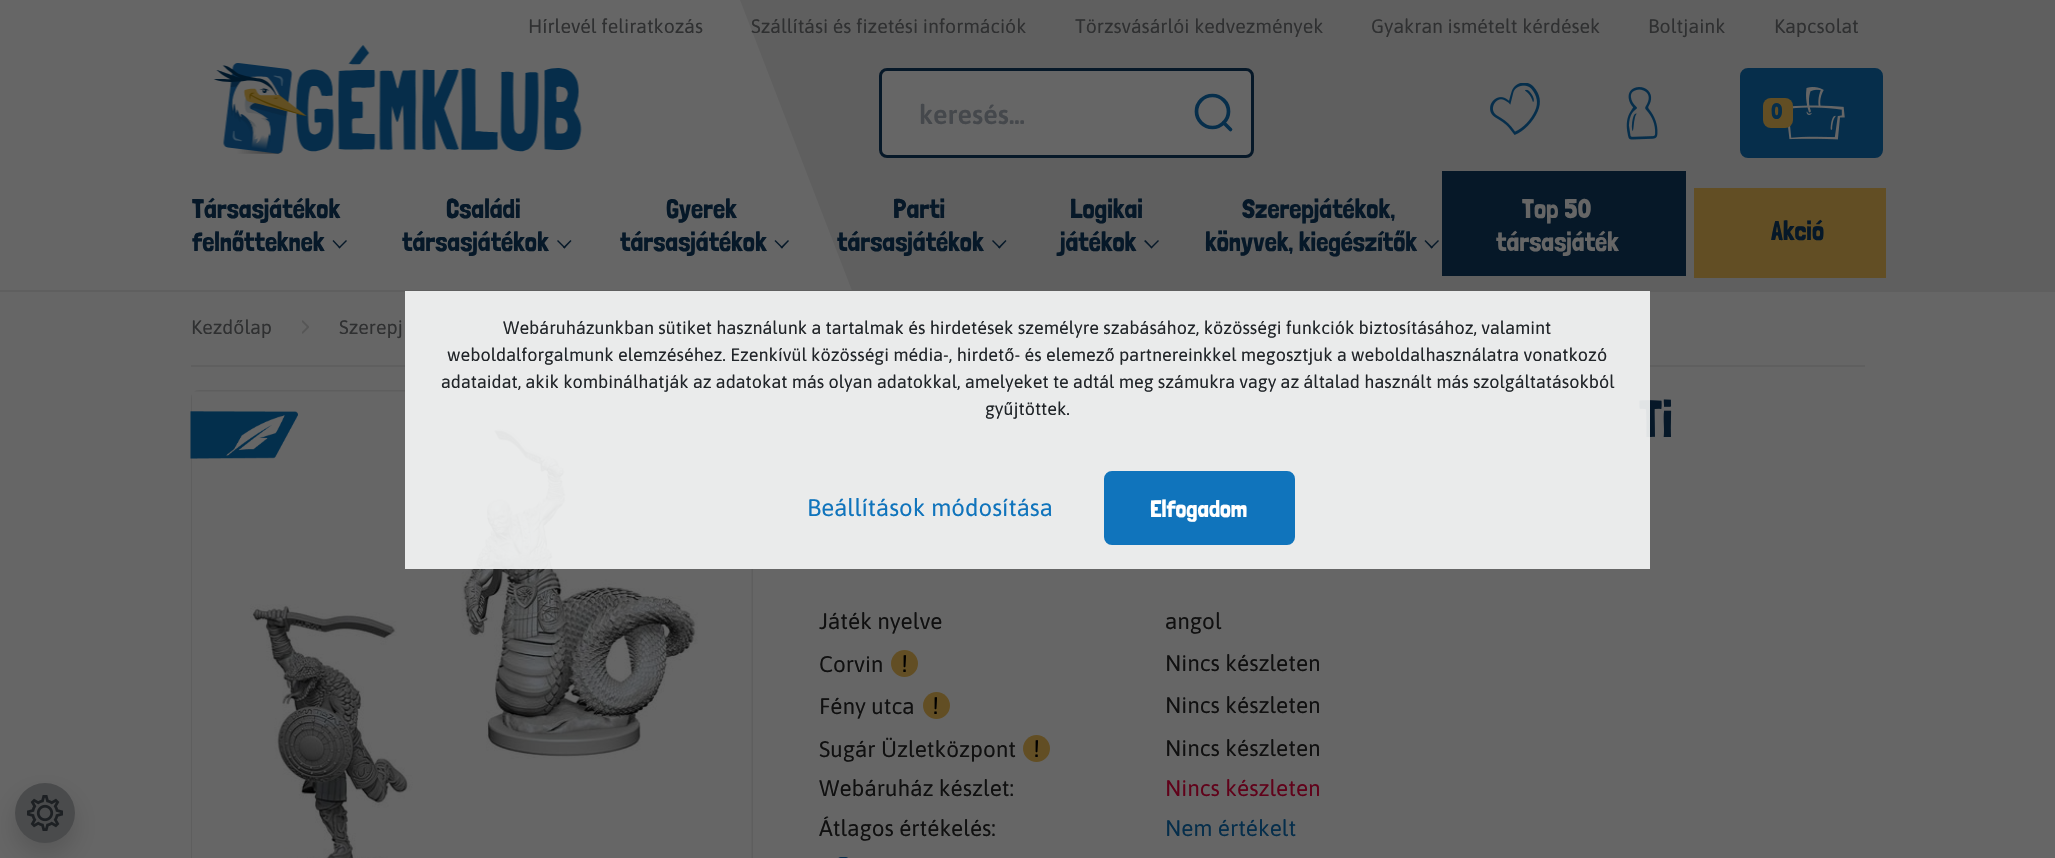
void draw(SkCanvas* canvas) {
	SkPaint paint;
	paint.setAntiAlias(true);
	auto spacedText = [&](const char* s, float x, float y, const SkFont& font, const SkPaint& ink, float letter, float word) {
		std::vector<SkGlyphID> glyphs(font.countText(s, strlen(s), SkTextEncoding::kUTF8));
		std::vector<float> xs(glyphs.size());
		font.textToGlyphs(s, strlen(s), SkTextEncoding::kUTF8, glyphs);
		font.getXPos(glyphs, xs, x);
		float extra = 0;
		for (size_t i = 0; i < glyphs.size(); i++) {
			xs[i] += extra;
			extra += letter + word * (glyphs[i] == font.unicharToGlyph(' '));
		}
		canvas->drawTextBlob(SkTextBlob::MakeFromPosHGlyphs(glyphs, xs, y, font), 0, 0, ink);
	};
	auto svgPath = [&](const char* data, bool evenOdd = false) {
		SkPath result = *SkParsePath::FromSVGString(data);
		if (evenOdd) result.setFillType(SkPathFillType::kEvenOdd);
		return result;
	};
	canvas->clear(0xff666666);
	paint.setColor(0x26000000);
	paint.setMaskFilter(SkMaskFilter::MakeBlur(kNormal_SkBlurStyle, 12));
	canvas->drawRoundRect(SkRect::MakeXYWH(15, 795, 60, 60), 30, 30, paint);
	paint.setMaskFilter(nullptr);
	paint.setColor(0xff4a4b4c);
	canvas->drawCircle(45, 813, 30, paint);
	canvas->drawImageRect(SkImages::DeferredFromEncodedData(SkData::MakeFromFileName("img1.png")), SkRect::MakeXYWH(27, 795, 36, 36), SkSamplingOptions());
	paint.setColor(0xff5f5f5f);
	canvas->drawRect(SkRect::MakeXYWH(0, 290, 2055, 2), paint);
	canvas->drawRect(SkRect::MakeXYWH(740, 0, 1315, 290), paint);
	canvas->save();
	canvas->clipRect(SkRect::MakeXYWH(740, 0, 1315, 290));
	paint.setColor(0xff666666);
	canvas->drawPath(svgPath("M740 405V0L896 405Z"), paint);
	canvas->restore();
	SkFont f1(fontMgr->matchFamilyStyle("Asap", SkFontStyle::Normal()), 19.5);
	f1.setSubpixel(true);
	paint.setColor(0xff2f3031);
	canvas->drawString("Hírlevél feliratkozás", 528, 33, f1, paint);
	canvas->drawString("Szállítási és fizetési információk", 751, 33, f1, paint);
	canvas->drawString("Törzsvásárlói kedvezmények", 1075, 33, f1, paint);
	canvas->drawString("Gyakran ismételt kérdések", 1371, 33, f1, paint);
	canvas->drawString("Boltjaink", 1648, 33, f1, paint);
	canvas->drawString("Kapcsolat", 1774, 33, f1, paint);
	canvas->drawImageRect(SkImages::DeferredFromEncodedData(SkData::MakeFromFileName("img2.png")), SkRect::MakeXYWH(213, 45, 369, 109), SkSamplingOptions());
	paint.setColor(0xff666666);
	canvas->drawRoundRect(SkRect::MakeXYWH(880.5, 69.5, 372, 87), 6.5, 6.5, paint);
	paint.setStroke(true);
	paint.setStrokeWidth(3);
	paint.setColor(0xff061828);
	canvas->drawRoundRect(SkRect::MakeXYWH(880.5, 69.5, 372, 87), 6.5, 6.5, paint);
	SkFont f2(fontMgr->matchFamilyStyle("Asap", SkFontStyle(600, SkFontStyle::kNormal_Width, SkFontStyle::kUpright_Slant)), 27);
	f2.setSubpixel(true);
	paint.setStroke(false);
	paint.setColor(0xff45484c);
	canvas->drawString("keresés...", 919, 124, f2, paint);
	paint.setStroke(true);
	paint.setStrokeWidth(3.7);
	paint.setStrokeCap(SkPaint::kRound_Cap);
	paint.setStrokeJoin(SkPaint::kRound_Join);
	paint.setColor(0xff062e4b);
	canvas->drawPath(svgPath("M1230.5 129.5L1223.5 122.5M1212.5 127.5C1203.5 127.5 1196.5 120 1196.5 111.5C1196.5 102.5 1203.5 95.5 1212.5 95.5C1221 95.5 1228.5 102.5 1228.5 111.5C1228.5 120 1221 127.5 1212.5 127.5Z"), paint);
	canvas->drawImageRect(SkImages::DeferredFromEncodedData(SkData::MakeFromFileName("img3.png")), SkRect::MakeXYWH(1490, 83, 50, 52), SkSamplingOptions());
	canvas->drawImageRect(SkImages::DeferredFromEncodedData(SkData::MakeFromFileName("img4.png")), SkRect::MakeXYWH(1626, 87, 32, 53), SkSamplingOptions());
	paint.setStroke(false);
	canvas->drawRoundRect(SkRect::MakeXYWH(1741, 69, 141, 88), 7, 7, paint);
	paint.setStroke(true);
	paint.setStrokeWidth(2);
	paint.setStrokeCap(SkPaint::kButt_Cap);
	paint.setStrokeJoin(SkPaint::kMiter_Join);
	canvas->drawRoundRect(SkRect::MakeXYWH(1741, 69, 141, 88), 7, 7, paint);
	canvas->drawImageRect(SkImages::DeferredFromEncodedData(SkData::MakeFromFileName("img5.png")), SkRect::MakeXYWH(1788, 87, 57, 53), SkSamplingOptions());
	paint.setStroke(false);
	paint.setColor(0xff624e24);
	canvas->drawRoundRect(SkRect::MakeXYWH(1763, 98, 30, 30), 8, 8, paint);
	SkFont f3(fontMgr->matchFamilyStyle("Londrina Solid", SkFontStyle::Normal()), 22.5);
	f3.setSubpixel(true);
	paint.setColor(0xff062e4b);
	spacedText("0", 1771, 119, f3, paint, 2, 0);
	SkFont f4(fontMgr->matchFamilyStyle("Londrina Solid", SkFontStyle::Normal()), 27);
	f4.setSubpixel(true);
	paint.setColor(0xff061828);
	canvas->drawString("Társasjátékok", 192, 218, f4, paint);
	canvas->drawString("felnőtteknek", 192, 251, f4, paint);
	canvas->drawPath(svgPath("M346 240L347 241L339.5 248.5L338.5 247.5Z"), paint);
	canvas->drawPath(svgPath("M333.5 240L340.5 247.5L339.5 248.5L332.5 241Z"), paint);
	canvas->drawString("Családi", 446, 218, f4, paint);
	canvas->drawString("társasjátékok", 402, 251, f4, paint);
	canvas->drawPath(svgPath("M570.5 240L571.5 241L564.5 248.5L563 247.5Z"), paint);
	canvas->drawPath(svgPath("M558 240L565.5 247.5L564.5 248.5L557 241Z"), paint);
	canvas->drawString("Gyerek", 666, 218, f4, paint);
	canvas->drawString("társasjátékok", 620, 251, f4, paint);
	canvas->drawPath(svgPath("M788 240L789 241L782 248.5L780.5 247.5Z"), paint);
	canvas->drawPath(svgPath("M775.5 240L783 247.5L782 248.5L774.5 241Z"), paint);
	canvas->drawString("Parti", 893, 218, f4, paint);
	canvas->drawString("társasjátékok", 837, 251, f4, paint);
	canvas->drawPath(svgPath("M1005.5 240L1006.5 241L999.5 248.5L998 247.5Z"), paint);
	canvas->drawPath(svgPath("M993 240L1000.5 247.5L999.5 248.5L992 241Z"), paint);
	canvas->drawString("Logikai", 1070, 218, f4, paint);
	canvas->drawString("játékok", 1060, 251, f4, paint);
	canvas->drawPath(svgPath("M1158 240L1159 241L1151.5 248.5L1150.5 247.5Z"), paint);
	canvas->drawPath(svgPath("M1145.5 240L1152.5 247.5L1151.5 248.5L1144 241Z"), paint);
	canvas->drawString("Szerepjátékok,", 1242, 218, f4, paint);
	canvas->drawString("könyvek, kiegészítők", 1205, 251, f4, paint);
	canvas->drawPath(svgPath("M1438 240L1439 241L1431.5 248.5L1430.5 247.5Z"), paint);
	canvas->drawPath(svgPath("M1425.5 240L1433 247.5L1431.5 248.5L1424.5 241Z"), paint);
	canvas->drawRect(SkRect::MakeXYWH(1442, 171, 244, 105), paint);
	paint.setColor(0xff666666);
	canvas->drawString("Top 50", 1522, 218, f4, paint);
	canvas->drawString("társasjáték", 1496, 251, f4, paint);
	paint.setColor(0xff624e24);
	canvas->drawRect(SkRect::MakeXYWH(1694, 188, 192, 90), paint);
	paint.setColor(0xff061828);
	canvas->drawString("Akció", 1771, 240, f4, paint);
	paint.setColor(0xff5f5f5f);
	canvas->drawRect(SkRect::MakeXYWH(191, 365, 1674, 2), paint);
	paint.setColor(0xff2f3031);
	canvas->drawString("Kezdőlap", 191, 334, f1, paint);
	canvas->drawImageRect(SkImages::DeferredFromEncodedData(SkData::MakeFromFileName("img6.png")), SkRect::MakeXYWH(302, 320, 7, 14), SkSamplingOptions());
	canvas->drawString("Szerepj", 339, 334, f1, paint);
	canvas->drawImageRect(SkImages::DeferredFromEncodedData(SkData::MakeFromFileName("img6.png")), SkRect::MakeXYWH(680, 320, 7, 14), SkSamplingOptions());
	canvas->drawImageRect(SkImages::DeferredFromEncodedData(SkData::MakeFromFileName("img6.png")), SkRect::MakeXYWH(812, 320, 7, 14), SkSamplingOptions());
	paint.setStroke(true);
	paint.setColor(0xff5e5e5e);
	canvas->drawRoundRect(SkRect::MakeXYWH(192, 391, 560, 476), 7, 7, paint);
	canvas->drawImageRect(SkImages::DeferredFromEncodedData(SkData::MakeFromFileName("img7.png")), SkRect::MakeXYWH(192, 391, 560, 467), SkSamplingOptions());
	canvas->drawImageRect(SkImages::DeferredFromEncodedData(SkData::MakeFromFileName("img8.png")), SkRect::MakeXYWH(190, 411, 108, 48), SkSamplingOptions());
	SkFont f5(fontMgr->matchFamilyStyle("Londrina Solid", SkFontStyle::Normal()), 52);
	f5.setSubpixel(true);
	paint.setStroke(false);
	paint.setColor(0xff061828);
	canvas->drawString("Ti", 1639, 437, f5, paint);
	SkFont f6(fontMgr->matchFamilyStyle("Asap", SkFontStyle::Normal()), 22.5);
	f6.setSubpixel(true);
	paint.setColor(0xff101010);
	canvas->drawString("Játék nyelve", 819, 629, f6, paint);
	canvas->drawString("angol", 1165, 629, f6, paint);
	canvas->drawString("Corvin", 819, 672, f6, paint);
	paint.setColor(0xff624e24);
	canvas->drawCircle(904.5, 663.5, 13.5, paint);
	SkFont f7(fontMgr->matchFamilyStyle("Asap", SkFontStyle::Normal()), 24);
	f7.setSubpixel(true);
	paint.setColor(0xff000000);
	canvas->drawString("!", 901, 672, f7, paint);
	paint.setColor(0xff101010);
	canvas->drawString("Nincs készleten", 1165, 671, f6, paint);
	canvas->drawString("Fény utca", 819, 714, f6, paint);
	paint.setColor(0xff624e24);
	canvas->drawCircle(936.5, 705.5, 13.5, paint);
	paint.setColor(0xff000000);
	canvas->drawString("!", 932, 714, f7, paint);
	paint.setColor(0xff101010);
	canvas->drawString("Nincs készleten", 1165, 713, f6, paint);
	canvas->drawString("Sugár Üzletközpont", 819, 757, f6, paint);
	paint.setColor(0xff624e24);
	canvas->drawCircle(1036.5, 748.5, 13.5, paint);
	paint.setColor(0xff000000);
	canvas->drawString("!", 1033, 757, f7, paint);
	paint.setColor(0xff101010);
	canvas->drawString("Nincs készleten", 1165, 756, f6, paint);
	canvas->drawString("Webáruház készlet:", 819, 796, f6, paint);
	paint.setColor(0xff60021a);
	canvas->drawString("Nincs készleten", 1165, 796, f6, paint);
	paint.setColor(0xff101010);
	canvas->drawString("Átlagos értékelés:", 819, 836, f6, paint);
	paint.setColor(0xff062e4b);
	canvas->drawString("Nem értékelt", 1165, 836, f6, paint);
	canvas->drawImageRect(SkImages::DeferredFromEncodedData(SkData::MakeFromFileName("img9.png")), SkRect::MakeXYWH(838, 857, 10, 1), SkSamplingOptions());
	paint.setColor(0xe6f8f9fa);
	canvas->drawRect(SkRect::MakeXYWH(405, 291, 1245, 278), paint);
	SkFont f8(fontMgr->matchFamilyStyle("Asap", SkFontStyle::Normal()), 18);
	f8.setSubpixel(true);
	paint.setColor(0xff212529);
	canvas->drawString("Webáruházunkban sütiket használunk a tartalmak és hirdetések személyre szabásához, közösségi funkciók biztosításához, valamint", 503, 334, f8, paint);
	canvas->drawString("weboldalforgalmunk elemzéséhez. Ezenkívül közösségi média-, hirdető- és elemező partnereinkkel megosztjuk a weboldalhasználatra vonatkozó", 447, 361, f8, paint);
	canvas->drawString("adataidat, akik kombinálhatják az adatokat más olyan adatokkal, amelyeket te adtál meg számukra vagy az általad használt más szolgáltatásokból", 441, 388, f8, paint);
	canvas->drawString("gyűjtöttek.", 985, 415, f8, paint);
	paint.setColor(0xff1074bc);
	canvas->drawString("Beállítások módosítása", 807, 516, f7, paint);
	canvas->drawRoundRect(SkRect::MakeXYWH(1105, 472, 189, 72), 7, 7, paint);
	paint.setStroke(true);
	canvas->drawRoundRect(SkRect::MakeXYWH(1105, 472, 189, 72), 7, 7, paint);
	SkFont f9(fontMgr->matchFamilyStyle("Londrina Solid", SkFontStyle::Normal()), 24);
	f9.setSubpixel(true);
	paint.setStroke(false);
	paint.setColor(0xffffffff);
	canvas->drawString("Elfogadom", 1150, 517, f9, paint);
}
